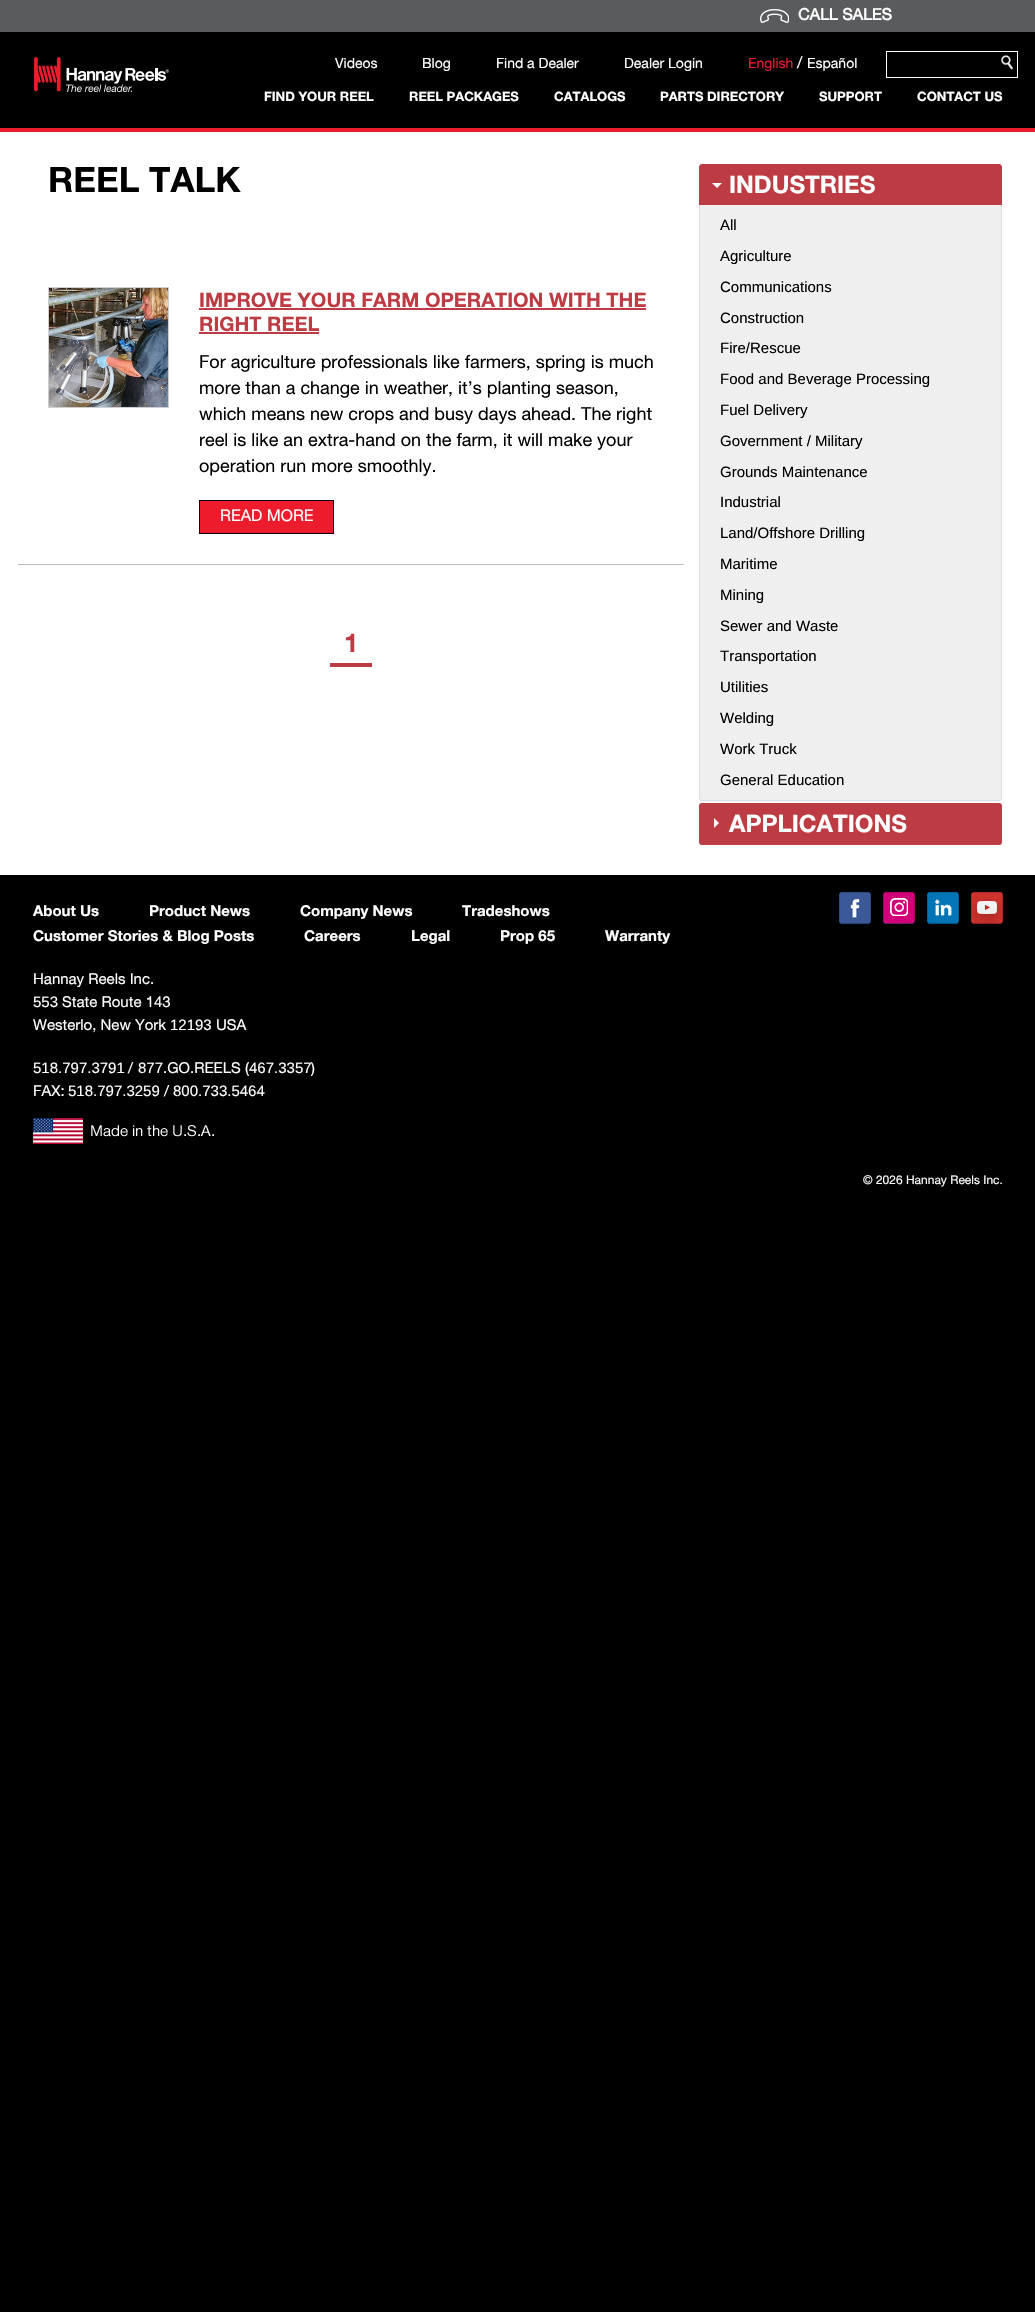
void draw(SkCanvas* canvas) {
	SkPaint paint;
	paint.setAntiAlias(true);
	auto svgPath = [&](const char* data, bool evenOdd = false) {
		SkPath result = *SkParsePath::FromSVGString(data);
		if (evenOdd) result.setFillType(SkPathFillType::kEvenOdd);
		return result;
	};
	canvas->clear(0xff000000);
	paint.setColor(0xff5a5b5d);
	canvas->drawRect(SkRect::MakeXYWH(0, 0, 1035, 32), paint);
	canvas->drawImageRect(SkImages::DeferredFromEncodedData(SkData::MakeFromFileName("img1.png")), SkRect::MakeXYWH(760, 9, 29, 14), SkSamplingOptions());
	SkFont f1(fontMgr->matchFamilyStyle("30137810", SkFontStyle::Bold()), 16);
	f1.setSubpixel(true);
	paint.setColor(0xffffffff);
	canvas->drawString("CALL SALES", 798, 20, f1, paint);
	paint.setColor(0xffed1c2c);
	canvas->drawRect(SkRect::MakeXYWH(0, 128, 1035, 4), paint);
	canvas->drawImageRect(SkImages::DeferredFromEncodedData(SkData::MakeFromFileName("img2.png")), SkRect::MakeXYWH(34, 57, 135, 35), SkSamplingOptions());
	SkFont f2(fontMgr->matchFamilyStyle("30137810", SkFontStyle::Normal()), 14);
	f2.setSubpixel(true);
	paint.setColor(0xffffffff);
	canvas->drawString("Videos", 335, 68, f2, paint);
	canvas->drawString("Blog", 422, 68, f2, paint);
	canvas->drawString("Find a Dealer", 496, 68, f2, paint);
	canvas->drawString("Dealer Login", 624, 68, f2, paint);
	paint.setColor(0xffed1c2c);
	canvas->drawString("English", 748, 68, f2, paint);
	SkFont f3(fontMgr->matchFamilyStyle("30137810", SkFontStyle::Normal()), 16);
	f3.setSubpixel(true);
	paint.setColor(0xffffffff);
	canvas->drawString("/", 797, 68, f3, paint);
	canvas->drawString("Español", 807, 68, f2, paint);
	paint.setStroke(true);
	paint.setStrokeWidth(1);
	canvas->drawRect(SkRect::MakeXYWH(886.5, 51.5, 131, 26), paint);
	canvas->drawImageRect(SkImages::DeferredFromEncodedData(SkData::MakeFromFileName("img3.png")), SkRect::MakeXYWH(1001, 55, 12, 15), SkSamplingOptions());
	SkFont f4(fontMgr->matchFamilyStyle("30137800", SkFontStyle::Normal()), 13);
	f4.setSubpixel(true);
	paint.setStroke(false);
	canvas->drawString("FIND YOUR REEL", 264, 101, f4, paint);
	canvas->drawString("REEL PACKAGES", 409, 101, f4, paint);
	canvas->drawString("CATALOGS", 554, 101, f4, paint);
	canvas->drawString("PARTS DIRECTORY", 660, 101, f4, paint);
	canvas->drawString("SUPPORT", 819, 101, f4, paint);
	canvas->drawString("CONTACT US", 917, 101, f4, paint);
	canvas->drawRect(SkRect::MakeXYWH(0, 132, 1035, 743), paint);
	SkFont f5(fontMgr->matchFamilyStyle("30137800", SkFontStyle::Normal()), 35);
	f5.setSubpixel(true);
	paint.setColor(0xff000000);
	canvas->drawString("REEL TALK", 48, 192, f5, paint);
	paint.setColor(0xffbcbcbc);
	canvas->drawRect(SkRect::MakeXYWH(18, 564, 666, 1), paint);
	paint.setStroke(true);
	paint.setColor(0xffcecece);
	canvas->drawRect(SkRect::MakeXYWH(48.5, 287.5, 120, 120), paint);
	canvas->drawImageRect(SkImages::DeferredFromEncodedData(SkData::MakeFromFileName("img4.png")), SkRect::MakeXYWH(49, 288, 119, 119), SkSamplingOptions());
	SkFont f6(fontMgr->matchFamilyStyle("30137800", SkFontStyle::Normal()), 20);
	f6.setSubpixel(true);
	paint.setStroke(false);
	paint.setColor(0xffbd3b42);
	canvas->drawString("IMPROVE YOUR FARM OPERATION WITH THE", 199, 307, f6, paint);
	canvas->drawRect(SkRect::MakeXYWH(199, 308, 447, 2), paint);
	canvas->drawString("RIGHT REEL", 199, 331, f6, paint);
	canvas->drawRect(SkRect::MakeXYWH(199, 332, 120, 2), paint);
	SkFont f7(fontMgr->matchFamilyStyle("30137810", SkFontStyle::Normal()), 18);
	f7.setSubpixel(true);
	paint.setColor(0xff000000);
	canvas->drawString("For agriculture professionals like farmers, spring is much", 199, 368, f7, paint);
	canvas->drawString("more than a change in weather, it’s planting season,", 199, 394, f7, paint);
	canvas->drawString("which means new crops and busy days ahead. The right", 199, 420, f7, paint);
	canvas->drawString("reel is like an extra-hand on the farm, it will make your", 199, 446, f7, paint);
	canvas->drawString("operation run more smoothly.", 199, 472, f7, paint);
	paint.setColor(0xffed1c2c);
	canvas->drawRect(SkRect::MakeXYWH(199.5, 500.5, 134, 33), paint);
	paint.setStroke(true);
	paint.setColor(0xff000000);
	canvas->drawRect(SkRect::MakeXYWH(199.5, 500.5, 134, 33), paint);
	paint.setStroke(false);
	paint.setColor(0xffffffff);
	canvas->drawString("READ MORE", 220, 521, f3, paint);
	SkFont f8(fontMgr->matchFamilyStyle("30137800", SkFontStyle::Normal()), 26);
	f8.setSubpixel(true);
	paint.setColor(0xffbd3b42);
	canvas->drawString("1", 344, 652, f8, paint);
	canvas->drawRect(SkRect::MakeXYWH(330, 663, 42, 4), paint);
	canvas->drawPath(svgPath("M702 164H999C1000.5 164 1002 165.5 1002 167V205H699V167C699 165.5 700.5 164 702 164Z"), paint);
	canvas->drawImageRect(SkImages::DeferredFromEncodedData(SkData::MakeFromFileName("img5.png")), SkRect::MakeXYWH(712, 183, 10, 5), SkSamplingOptions());
	SkFont f9(fontMgr->matchFamilyStyle("30137800", SkFontStyle::Normal()), 24);
	f9.setSubpixel(true);
	paint.setColor(0xffffffff);
	canvas->drawString("INDUSTRIES", 729, 193, f9, paint);
	paint.setColor(0xffefefef);
	canvas->drawPath(svgPath("M699 205H1002V798C1002 799.5 1000.5 801 999 801H702C700.5 801 699 799.5 699 798Z"), paint);
	paint.setColor(0xffdddddd);
	canvas->drawPath(svgPath("M699 205H1002V798C1002 800 1001 801 999 801H702C700 801 699 800 699 798ZM700 205H1001V798C1001 799 1000 800 999 800H702C701 800 700 799 700 798Z", true), paint);
	SkFont f10(fontMgr->matchFamilyStyle("Liberation Sans", SkFontStyle::Normal()), 15);
	f10.setSubpixel(true);
	paint.setColor(0xff000000);
	canvas->drawString("All", 720, 230, f10, paint);
	canvas->drawString("Agriculture", 720, 261, f10, paint);
	canvas->drawString("Communications", 720, 292, f10, paint);
	canvas->drawString("Construction", 720, 323, f10, paint);
	canvas->drawString("Fire/Rescue", 720, 353, f10, paint);
	canvas->drawString("Food and Beverage Processing", 720, 384, f10, paint);
	canvas->drawString("Fuel Delivery", 720, 415, f10, paint);
	canvas->drawString("Government / Military", 720, 446, f10, paint);
	canvas->drawString("Grounds Maintenance", 720, 477, f10, paint);
	canvas->drawString("Industrial", 720, 507, f10, paint);
	canvas->drawString("Land/Offshore Drilling", 720, 538, f10, paint);
	canvas->drawString("Maritime", 720, 569, f10, paint);
	canvas->drawString("Mining", 720, 600, f10, paint);
	canvas->drawString("Sewer and Waste", 720, 631, f10, paint);
	canvas->drawString("Transportation", 720, 661, f10, paint);
	canvas->drawString("Utilities", 720, 692, f10, paint);
	canvas->drawString("Welding", 720, 723, f10, paint);
	canvas->drawString("Work Truck", 720, 754, f10, paint);
	canvas->drawString("General Education", 720, 785, f10, paint);
	paint.setColor(0xffbd3b42);
	canvas->drawRoundRect(SkRect::MakeXYWH(699, 803, 303, 42), 3, 3, paint);
	canvas->drawImageRect(SkImages::DeferredFromEncodedData(SkData::MakeFromFileName("img6.png")), SkRect::MakeXYWH(714, 818, 5, 10), SkSamplingOptions());
	paint.setColor(0xffffffff);
	canvas->drawString("APPLICATIONS", 729, 832, f9, paint);
	SkFont f11(fontMgr->matchFamilyStyle("30137800", SkFontStyle::Normal()), 15);
	f11.setSubpixel(true);
	canvas->drawString("About Us", 33, 916, f11, paint);
	canvas->drawString("Product News", 149, 916, f11, paint);
	canvas->drawString("Company News", 300, 916, f11, paint);
	canvas->drawString("Tradeshows", 462, 916, f11, paint);
	canvas->drawString("Customer Stories & Blog Posts", 33, 941, f11, paint);
	canvas->drawString("Careers", 304, 941, f11, paint);
	canvas->drawString("Legal", 411, 941, f11, paint);
	canvas->drawString("Prop 65", 500, 941, f11, paint);
	canvas->drawString("Warranty", 605, 941, f11, paint);
	canvas->drawImageRect(SkImages::DeferredFromEncodedData(SkData::MakeFromFileName("img7.png")), SkRect::MakeXYWH(839, 892, 32, 32), SkSamplingOptions());
	canvas->drawImageRect(SkImages::DeferredFromEncodedData(SkData::MakeFromFileName("img8.png")), SkRect::MakeXYWH(883, 892, 32, 32), SkSamplingOptions());
	canvas->drawImageRect(SkImages::DeferredFromEncodedData(SkData::MakeFromFileName("img9.png")), SkRect::MakeXYWH(927, 892, 32, 32), SkSamplingOptions());
	canvas->drawImageRect(SkImages::DeferredFromEncodedData(SkData::MakeFromFileName("img10.png")), SkRect::MakeXYWH(971, 892, 32, 32), SkSamplingOptions());
	SkFont f12(fontMgr->matchFamilyStyle("30137810", SkFontStyle::Normal()), 15);
	f12.setSubpixel(true);
	canvas->drawString("Hannay Reels Inc.", 33, 984, f12, paint);
	canvas->drawString("553", 33, 1007, f10, paint);
	canvas->drawString("State Route 143", 62, 1007, f12, paint);
	canvas->drawString("Westerlo, New York", 33, 1030, f12, paint);
	canvas->drawString("12193", 170, 1030, f10, paint);
	canvas->drawString("USA", 216, 1030, f12, paint);
	canvas->drawString("518.797.3791", 33, 1073, f10, paint);
	canvas->drawString("/", 128, 1073, f12, paint);
	canvas->drawString("877", 138, 1073, f10, paint);
	canvas->drawString(".GO.REELS (", 163, 1073, f12, paint);
	canvas->drawString("467.3357", 249, 1073, f10, paint);
	canvas->drawString(")", 311, 1073, f12, paint);
	canvas->drawString("FAX:", 33, 1096, f12, paint);
	canvas->drawString("518.797.3259", 68, 1096, f10, paint);
	canvas->drawString("/", 164, 1096, f12, paint);
	canvas->drawString("800.733.5464", 173, 1096, f10, paint);
	canvas->drawImageRect(SkImages::DeferredFromEncodedData(SkData::MakeFromFileName("img11.png")), SkRect::MakeXYWH(33, 1118, 181, 26), SkSamplingOptions());
	SkFont f13(fontMgr->matchFamilyStyle("30137810", SkFontStyle::Normal()), 12);
	f13.setSubpixel(true);
	canvas->drawString("© 2026 Hannay Reels Inc.", 863, 1184, f13, paint);
}
